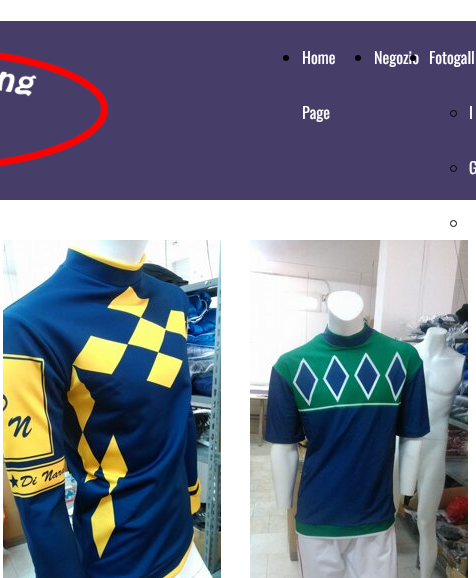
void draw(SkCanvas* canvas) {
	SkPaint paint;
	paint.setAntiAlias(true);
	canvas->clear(0xffffffff);
	paint.setColor(0xff463e69);
	canvas->drawRect(SkRect::MakeXYWH(0, 21, 476, 179), paint);
	canvas->drawImageRect(SkImages::DeferredFromEncodedData(SkData::MakeFromFileName("img1.png")), SkRect::MakeXYWH(0, 52, 108, 115), SkSamplingOptions());
	paint.setColor(0xff000000);
	canvas->drawCircle(286, 58, 3, paint);
	SkFont f1(fontMgr->matchFamilyStyle("Oswald", SkFontStyle::Normal()), 16);
	f1.setSubpixel(true);
	paint.setColor(0xffffffff);
	canvas->drawString("Home", 302, 64, f1, paint);
	canvas->drawString("Page", 302, 119, f1, paint);
	paint.setColor(0xff000000);
	canvas->drawCircle(358, 58, 3, paint);
	paint.setColor(0xffffffff);
	canvas->drawString("Negozio", 374, 64, f1, paint);
	paint.setColor(0xff000000);
	canvas->drawCircle(413, 58, 3, paint);
	paint.setColor(0xffffffff);
	canvas->drawString("Fotogall", 429, 64, f1, paint);
	paint.setStroke(true);
	paint.setStrokeWidth(1);
	paint.setColor(0xff000000);
	canvas->drawCircle(453.5, 113.5, 3, paint);
	paint.setStroke(false);
	paint.setColor(0xffffffff);
	canvas->drawString("I", 469, 119, f1, paint);
	paint.setStroke(true);
	paint.setColor(0xff000000);
	canvas->drawCircle(453.5, 168.5, 3, paint);
	paint.setStroke(false);
	paint.setColor(0xffffffff);
	canvas->drawString("G", 469, 174, f1, paint);
	paint.setStroke(true);
	paint.setColor(0xff000000);
	canvas->drawCircle(453.5, 223.5, 3, paint);
	canvas->drawImageRect(SkImages::DeferredFromEncodedData(SkData::MakeFromFileName("img2.png")), SkRect::MakeXYWH(3, 240, 218, 338), SkSamplingOptions());
	canvas->drawImageRect(SkImages::DeferredFromEncodedData(SkData::MakeFromFileName("img3.png")), SkRect::MakeXYWH(250, 240, 218, 338), SkSamplingOptions());
}
